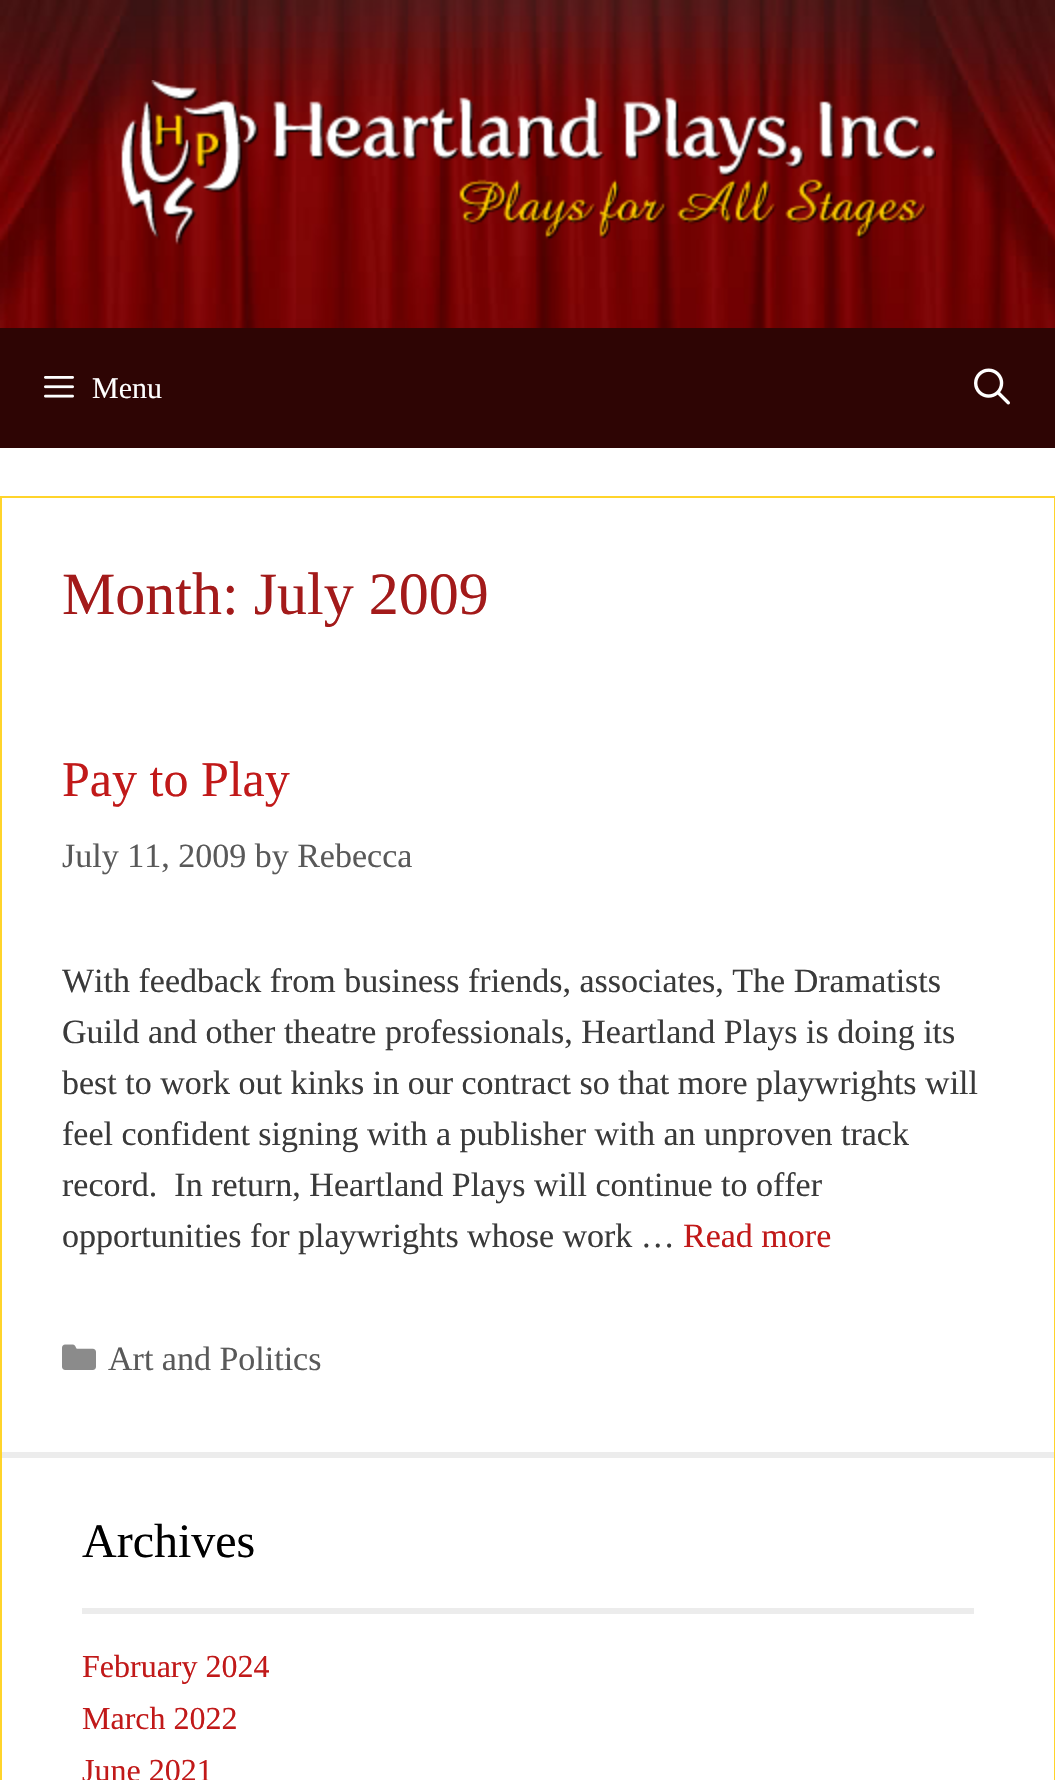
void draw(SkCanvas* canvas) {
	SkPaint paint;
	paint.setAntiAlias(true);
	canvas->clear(0xffffffff);
	canvas->drawImageRect(SkImages::DeferredFromEncodedData(SkData::MakeFromFileName("img1.png")), SkRect::MakeXYWH(0, 0, 1055, 328), SkSamplingOptions());
	canvas->drawImageRect(SkImages::DeferredFromEncodedData(SkData::MakeFromFileName("img2.png")), SkRect::MakeXYWH(121, 80, 815, 166), SkSamplingOptions());
	paint.setColor(0xff2e0504);
	canvas->drawRect(SkRect::MakeXYWH(0, 328, 1055, 120), paint);
	canvas->drawImageRect(SkImages::DeferredFromEncodedData(SkData::MakeFromFileName("img3.png")), SkRect::MakeXYWH(44, 376, 30, 22), SkSamplingOptions());
	SkFont f1(fontMgr->matchFamilyStyle("Liberation Serif", SkFontStyle::Normal()), 30);
	f1.setSubpixel(true);
	paint.setColor(0xffffffff);
	canvas->drawString("Menu", 92, 398, f1, paint);
	canvas->drawImageRect(SkImages::DeferredFromEncodedData(SkData::MakeFromFileName("img4.png")), SkRect::MakeXYWH(974, 368, 36, 37), SkSamplingOptions());
	paint.setColor(0xffffd42b);
	canvas->drawRect(SkRect::MakeXYWH(0, 496, 1055, 2), paint);
	canvas->drawRect(SkRect::MakeXYWH(1054, 496, 1, 1284), paint);
	canvas->drawRect(SkRect::MakeXYWH(0, 496, 2, 1284), paint);
	SkFont f2(fontMgr->matchFamilyStyle("Liberation Serif", SkFontStyle::Normal()), 60);
	f2.setSubpixel(true);
	paint.setColor(0xffa31a1a);
	canvas->drawString("Month: July 2009", 62, 614, f2, paint);
	paint.setColor(0xffececec);
	canvas->drawRect(SkRect::MakeXYWH(2, 1452, 1052, 6), paint);
	SkFont f3(fontMgr->matchFamilyStyle("Liberation Serif", SkFontStyle::Normal()), 50);
	f3.setSubpixel(true);
	paint.setColor(0xffc11919);
	canvas->drawString("Pay to Play", 62, 796, f3, paint);
	SkFont f4(fontMgr->matchFamilyStyle("Liberation Serif", SkFontStyle::Normal()), 34);
	f4.setSubpixel(true);
	paint.setColor(0xff595959);
	canvas->drawString("July 11, 2009 by Rebecca", 62, 867, f4, paint);
	paint.setColor(0xff3a3a3a);
	canvas->drawString("With feedback from business friends, associates, The Dramatists", 62, 992, f4, paint);
	canvas->drawString("Guild and other theatre professionals, Heartland Plays is doing its", 62, 1043, f4, paint);
	canvas->drawString("best to work out kinks in our contract so that more playwrights will", 62, 1094, f4, paint);
	canvas->drawString("feel confident signing with a publisher with an unproven track", 62, 1145, f4, paint);
	canvas->drawString("record.  In return, Heartland Plays will continue to offer", 62, 1196, f4, paint);
	canvas->drawString("opportunities for playwrights whose work …", 62, 1247, f4, paint);
	paint.setColor(0xffc11919);
	canvas->drawString("Read more", 683, 1247, f4, paint);
	canvas->drawImageRect(SkImages::DeferredFromEncodedData(SkData::MakeFromFileName("img5.png")), SkRect::MakeXYWH(62, 1344, 34, 26), SkSamplingOptions());
	paint.setColor(0xff595959);
	canvas->drawString("Art and Politics", 108, 1370, f4, paint);
	paint.setColor(0xffececec);
	canvas->drawRect(SkRect::MakeXYWH(82, 1608, 892, 6), paint);
	SkFont f5(fontMgr->matchFamilyStyle("Liberation Serif", SkFontStyle::Normal()), 48);
	f5.setSubpixel(true);
	paint.setColor(0xff000000);
	canvas->drawString("Archives", 82, 1557, f5, paint);
	SkFont f6(fontMgr->matchFamilyStyle("Liberation Serif", SkFontStyle::Normal()), 32);
	f6.setSubpixel(true);
	paint.setColor(0xffc11919);
	canvas->drawString("February 2024", 82, 1677, f6, paint);
	canvas->drawString("March 2022", 82, 1729, f6, paint);
	canvas->drawString("June 2021", 82, 1781, f6, paint);
}
